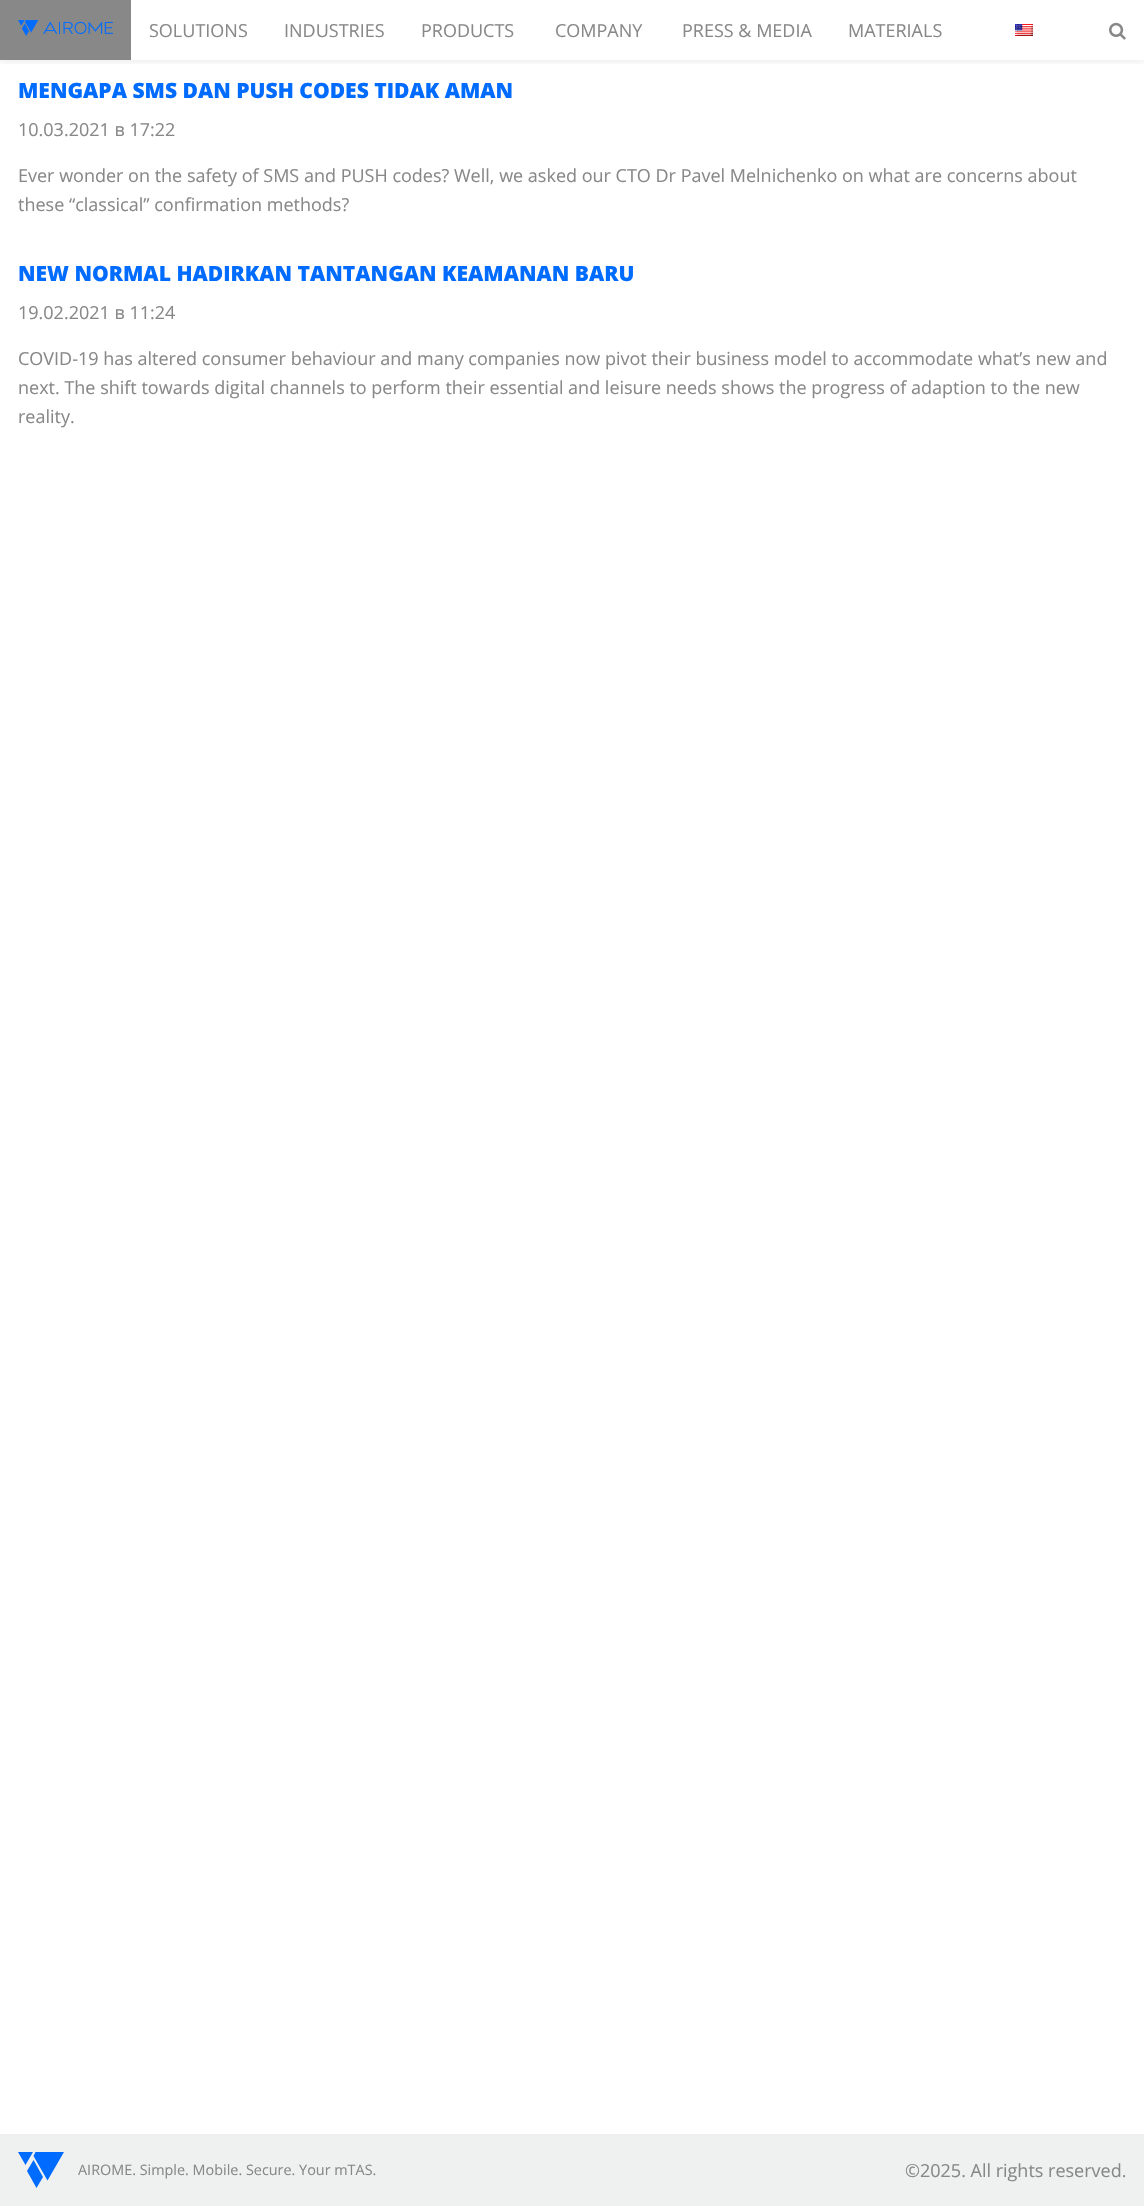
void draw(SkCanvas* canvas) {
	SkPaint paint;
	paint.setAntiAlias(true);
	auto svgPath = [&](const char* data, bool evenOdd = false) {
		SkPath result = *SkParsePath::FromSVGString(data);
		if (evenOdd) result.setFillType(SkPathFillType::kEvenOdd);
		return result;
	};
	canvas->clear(0xffffffff);
	canvas->save();
	canvas->clipRect(SkRect::MakeXYWH(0, 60, 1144, 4));
	paint.setColor(0x1a000000);
	paint.setMaskFilter(SkMaskFilter::MakeBlur(kNormal_SkBlurStyle, 5));
	canvas->drawRect(SkRect::MakeXYWH(0, 0, 1144, 60), paint);
	paint.setMaskFilter(nullptr);
	canvas->restore();
	paint.setColor(0xff888888);
	canvas->drawRect(SkRect::MakeXYWH(0, 0, 131, 60), paint);
	canvas->drawImageRect(SkImages::DeferredFromEncodedData(SkData::MakeFromFileName("img1.png")), SkRect::MakeXYWH(18, 20, 95, 16), SkSamplingOptions());
	SkFont f1(fontMgr->matchFamilyStyle("Open Sans", SkFontStyle::Normal()), 18);
	f1.setSubpixel(true);
	canvas->drawString("SOLUTIONS", 149, 37, f1, paint);
	canvas->drawString("INDUSTRIES", 284, 37, f1, paint);
	canvas->drawString("PRODUCTS", 421, 37, f1, paint);
	canvas->drawString("COMPANY", 555, 37, f1, paint);
	canvas->drawString("PRESS & MEDIA", 682, 37, f1, paint);
	canvas->drawString("MATERIALS", 848, 37, f1, paint);
	canvas->drawImageRect(SkImages::DeferredFromEncodedData(SkData::MakeFromFileName("img2.png")), SkRect::MakeXYWH(1015, 24, 18, 12), SkSamplingOptions());
	canvas->drawImageRect(SkImages::DeferredFromEncodedData(SkData::MakeFromFileName("img3.png")), SkRect::MakeXYWH(1109, 22, 17, 18), SkSamplingOptions());
	SkFont f2(fontMgr->matchFamilyStyle("Open Sans", SkFontStyle(800, SkFontStyle::kNormal_Width, SkFontStyle::kUpright_Slant)), 21.05);
	f2.setSubpixel(true);
	paint.setColor(0xff006bff);
	canvas->drawString("MENGAPA SMS DAN PUSH CODES TIDAK AMAN", 18, 98, f2, paint);
	paint.setColor(0xff888888);
	canvas->drawString("10.03.2021 в 17:22", 18, 136, f1, paint);
	canvas->drawString("Ever wonder on the safety of SMS and PUSH codes? Well, we asked our CTO Dr Pavel Melnichenko on what are concerns about", 18, 182, f1, paint);
	canvas->drawString("these “classical” confirmation methods?", 18, 211, f1, paint);
	paint.setColor(0xff006bff);
	canvas->drawString("NEW NORMAL HADIRKAN TANTANGAN KEAMANAN BARU", 18, 281, f2, paint);
	paint.setColor(0xff888888);
	canvas->drawString("19.02.2021 в 11:24", 18, 319, f1, paint);
	canvas->drawString("COVID-19 has altered consumer behaviour and many companies now pivot their business model to accommodate what’s new and", 18, 365, f1, paint);
	canvas->drawString("next. The shift towards digital channels to perform their essential and leisure needs shows the progress of adaption to the new", 18, 394, f1, paint);
	canvas->drawString("reality.", 18, 423, f1, paint);
	paint.setColor(0xffeff1f1);
	canvas->drawRect(SkRect::MakeXYWH(0, 2134, 1144, 72), paint);
	paint.setColor(0xff006bff);
	canvas->drawPath(svgPath("M18 2152L25.5 2165L33 2152ZM35.5 2152L33.5 2156L47.5 2180.5L64 2152Z"), paint);
	canvas->drawPath(svgPath("M27 2171L36.5 2188L43 2177L33.5 2160Z"), paint);
	SkFont f3(fontMgr->matchFamilyStyle("Open Sans", SkFontStyle::Normal()), 14.4);
	f3.setSubpixel(true);
	paint.setColor(0xff888888);
	canvas->drawString("AIROME. Simple. Mobile. Secure. Your mTAS.", 78, 2175, f3, paint);
	canvas->drawString("©2025. All rights reserved.", 905, 2177, f1, paint);
}
